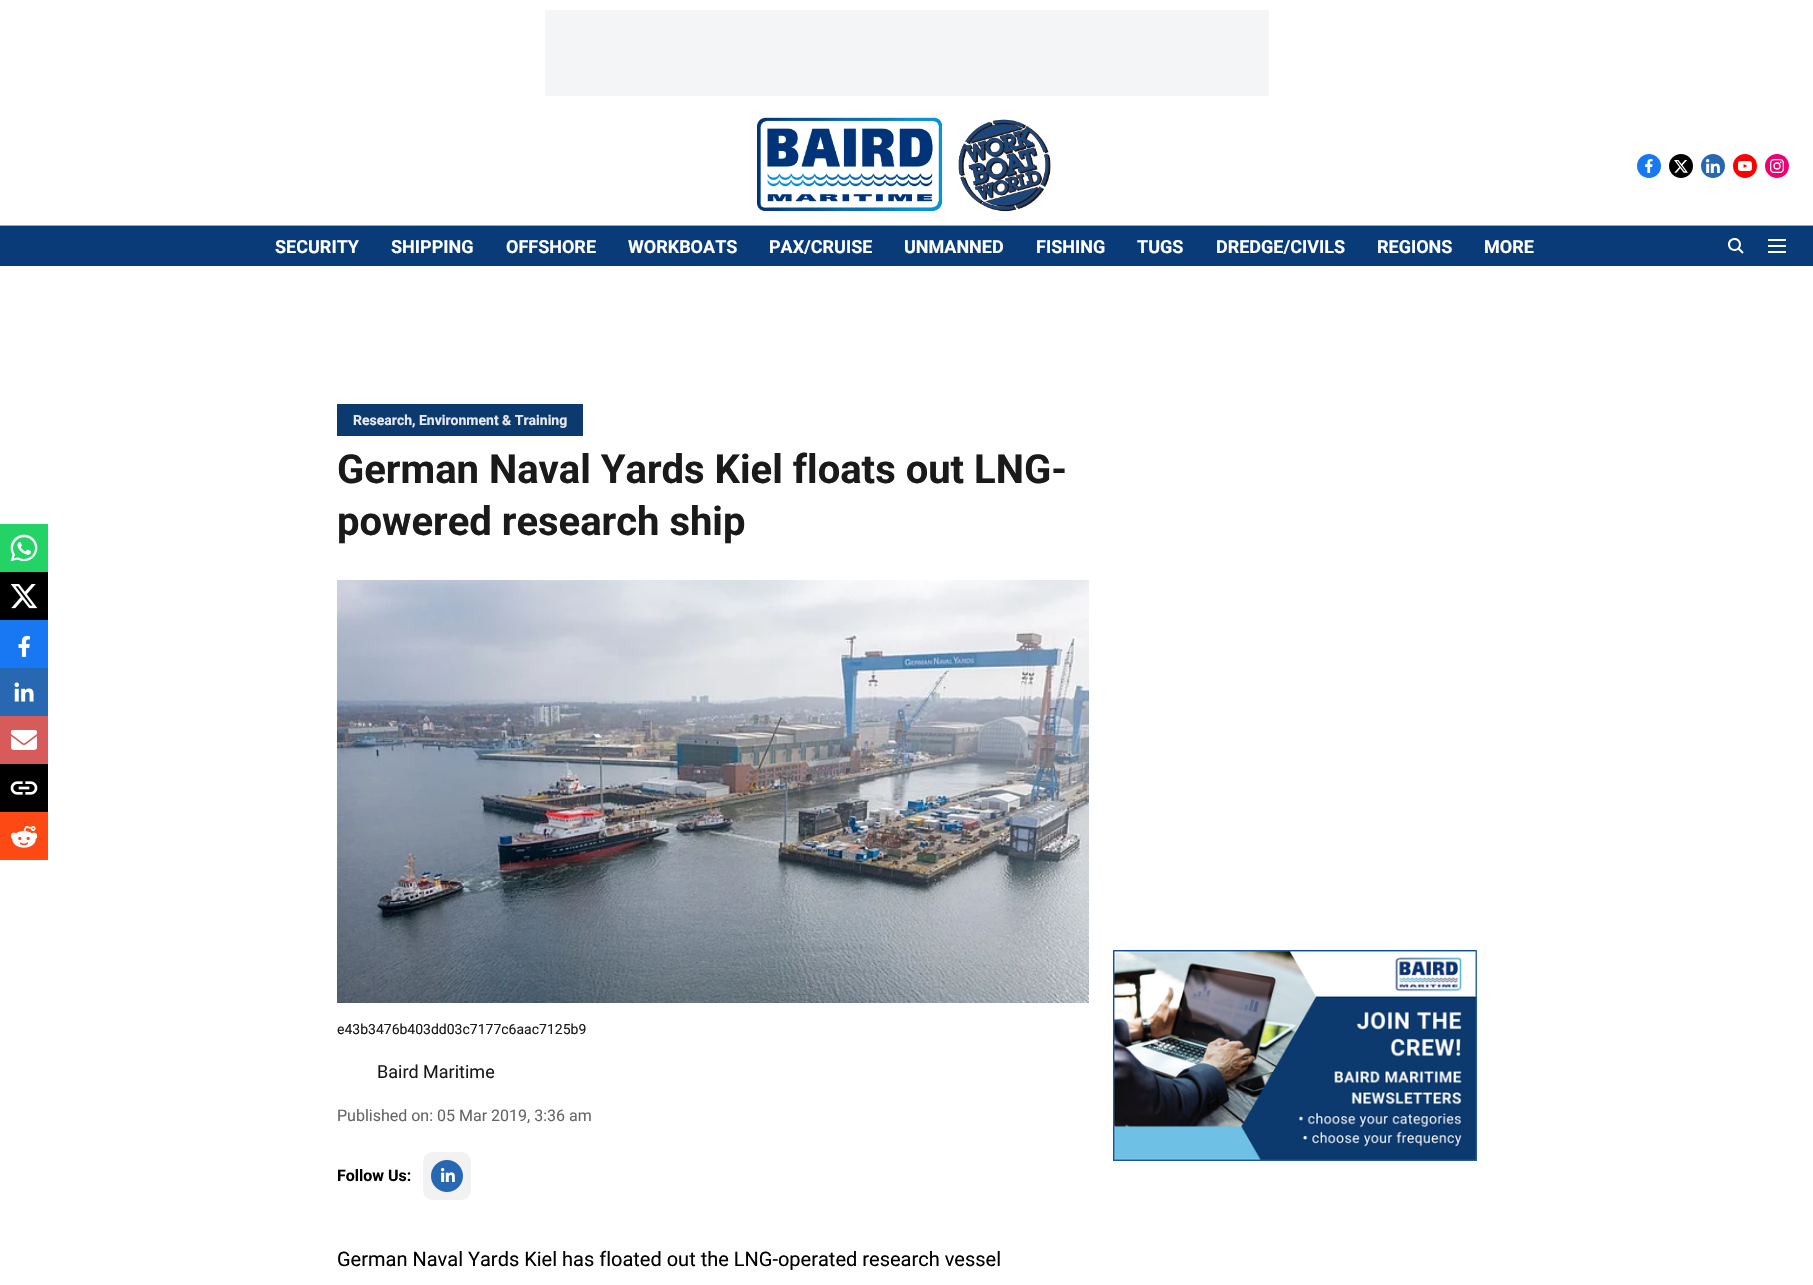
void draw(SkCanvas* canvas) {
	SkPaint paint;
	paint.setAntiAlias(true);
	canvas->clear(0xffffffff);
	paint.setColor(0xfff4f5f7);
	canvas->drawRect(SkRect::MakeXYWH(545, 10, 724, 86), paint);
	paint.setColor(0xffa4a4a4);
	canvas->drawRect(SkRect::MakeXYWH(0, 225, 1813, 1), paint);
	canvas->drawImageRect(SkImages::DeferredFromEncodedData(SkData::MakeFromFileName("img1.png")), SkRect::MakeXYWH(757, 117, 294, 95), SkSamplingOptions());
	canvas->drawImageRect(SkImages::DeferredFromEncodedData(SkData::MakeFromFileName("img2.png")), SkRect::MakeXYWH(1637, 154, 24, 24), SkSamplingOptions());
	canvas->drawImageRect(SkImages::DeferredFromEncodedData(SkData::MakeFromFileName("img3.png")), SkRect::MakeXYWH(1669, 154, 24, 24), SkSamplingOptions());
	canvas->drawImageRect(SkImages::DeferredFromEncodedData(SkData::MakeFromFileName("img4.png")), SkRect::MakeXYWH(1701, 154, 24, 24), SkSamplingOptions());
	canvas->drawImageRect(SkImages::DeferredFromEncodedData(SkData::MakeFromFileName("img5.png")), SkRect::MakeXYWH(1733, 154, 24, 24), SkSamplingOptions());
	canvas->drawImageRect(SkImages::DeferredFromEncodedData(SkData::MakeFromFileName("img6.png")), SkRect::MakeXYWH(1765, 154, 24, 24), SkSamplingOptions());
	paint.setColor(0xff093b78);
	canvas->drawRect(SkRect::MakeXYWH(0, 226, 1813, 40), paint);
	SkFont f1(fontMgr->matchFamilyStyle("Roboto", SkFontStyle::Bold()), 18);
	f1.setSubpixel(true);
	paint.setColor(0xffffffff);
	canvas->drawString("SECURITY", 275, 253, f1, paint);
	canvas->drawString("SHIPPING", 391, 253, f1, paint);
	canvas->drawString("OFFSHORE", 506, 253, f1, paint);
	canvas->drawString("WORKBOATS", 628, 253, f1, paint);
	canvas->drawString("PAX/CRUISE", 769, 253, f1, paint);
	canvas->drawString("UNMANNED", 904, 253, f1, paint);
	canvas->drawString("FISHING", 1036, 253, f1, paint);
	canvas->drawString("TUGS", 1137, 253, f1, paint);
	canvas->drawString("DREDGE/CIVILS", 1216, 253, f1, paint);
	canvas->drawString("REGIONS", 1377, 253, f1, paint);
	canvas->drawString("MORE", 1484, 253, f1, paint);
	canvas->drawImageRect(SkImages::DeferredFromEncodedData(SkData::MakeFromFileName("img7.png")), SkRect::MakeXYWH(1727, 238, 17, 16), SkSamplingOptions());
	canvas->drawImageRect(SkImages::DeferredFromEncodedData(SkData::MakeFromFileName("img8.png")), SkRect::MakeXYWH(1768, 239, 18, 14), SkSamplingOptions());
	paint.setColor(0xff0c3a6e);
	canvas->drawRect(SkRect::MakeXYWH(337, 404, 246, 32), paint);
	SkFont f2(fontMgr->matchFamilyStyle("Roboto", SkFontStyle::Bold()), 14);
	f2.setSubpixel(true);
	paint.setColor(0xffe7ebf1);
	canvas->drawString("Research, Environment & Training", 353, 425, f2, paint);
	SkFont f3(fontMgr->matchFamilyStyle("Roboto", SkFontStyle::Bold()), 40);
	f3.setSubpixel(true);
	paint.setColor(0xff1a1a1a);
	canvas->drawString("German Naval Yards Kiel floats out LNG-", 337, 483, f3, paint);
	canvas->drawString("powered research ship", 337, 535, f3, paint);
	canvas->drawImageRect(SkImages::DeferredFromEncodedData(SkData::MakeFromFileName("img9.png")), SkRect::MakeXYWH(337, 580, 752, 423), SkSamplingOptions());
	SkFont f4(fontMgr->matchFamilyStyle("Roboto", SkFontStyle::Normal()), 14);
	f4.setSubpixel(true);
	canvas->drawString("e43b3476b403dd03c7177c6aac7125b9", 337, 1034, f4, paint);
	SkFont f5(fontMgr->matchFamilyStyle("Roboto", SkFontStyle::Normal()), 18);
	f5.setSubpixel(true);
	canvas->drawString("Baird Maritime", 377, 1078, f5, paint);
	SkFont f6(fontMgr->matchFamilyStyle("Roboto", SkFontStyle::Normal()), 16);
	f6.setSubpixel(true);
	paint.setColor(0xff666666);
	canvas->drawString("Published on: 05 Mar 2019, 3:36 am", 337, 1121, f6, paint);
	paint.setColor(0xff24d366);
	canvas->drawRect(SkRect::MakeXYWH(0, 524, 48, 48), paint);
	canvas->drawImageRect(SkImages::DeferredFromEncodedData(SkData::MakeFromFileName("img10.png")), SkRect::MakeXYWH(10, 534, 28, 28), SkSamplingOptions());
	paint.setColor(0xff000000);
	canvas->drawRect(SkRect::MakeXYWH(0, 572, 48, 48), paint);
	canvas->drawImageRect(SkImages::DeferredFromEncodedData(SkData::MakeFromFileName("img11.png")), SkRect::MakeXYWH(10, 584, 28, 25), SkSamplingOptions());
	paint.setColor(0xff1877f2);
	canvas->drawRect(SkRect::MakeXYWH(0, 620, 48, 48), paint);
	canvas->drawImageRect(SkImages::DeferredFromEncodedData(SkData::MakeFromFileName("img12.png")), SkRect::MakeXYWH(18, 635, 12, 22), SkSamplingOptions());
	paint.setColor(0xff2867b2);
	canvas->drawRect(SkRect::MakeXYWH(0, 668, 48, 48), paint);
	canvas->drawImageRect(SkImages::DeferredFromEncodedData(SkData::MakeFromFileName("img13.png")), SkRect::MakeXYWH(14, 682, 20, 20), SkSamplingOptions());
	paint.setColor(0xffd85b5b);
	canvas->drawRect(SkRect::MakeXYWH(0, 716, 48, 48), paint);
	canvas->drawImageRect(SkImages::DeferredFromEncodedData(SkData::MakeFromFileName("img14.png")), SkRect::MakeXYWH(11, 730, 26, 20), SkSamplingOptions());
	paint.setColor(0xff000000);
	canvas->drawRect(SkRect::MakeXYWH(0, 764, 48, 48), paint);
	canvas->drawImageRect(SkImages::DeferredFromEncodedData(SkData::MakeFromFileName("img15.png")), SkRect::MakeXYWH(10, 781, 28, 14), SkSamplingOptions());
	paint.setColor(0xfffd4a14);
	canvas->drawRect(SkRect::MakeXYWH(0, 812, 48, 48), paint);
	canvas->drawImageRect(SkImages::DeferredFromEncodedData(SkData::MakeFromFileName("img16.png")), SkRect::MakeXYWH(11, 826, 26, 22), SkSamplingOptions());
	SkFont f7(fontMgr->matchFamilyStyle("Roboto", SkFontStyle::Bold()), 16);
	f7.setSubpixel(true);
	paint.setColor(0xff000000);
	canvas->drawString("Follow Us:", 337, 1181, f7, paint);
	paint.setColor(0xfff2f2f2);
	canvas->drawRoundRect(SkRect::MakeXYWH(423, 1152, 48, 48), 10, 10, paint);
	canvas->drawImageRect(SkImages::DeferredFromEncodedData(SkData::MakeFromFileName("img17.png")), SkRect::MakeXYWH(431, 1160, 32, 32), SkSamplingOptions());
	SkFont f8(fontMgr->matchFamilyStyle("Roboto", SkFontStyle::Normal()), 20);
	f8.setSubpixel(true);
	paint.setColor(0xff000000);
	canvas->drawString("German Naval Yards Kiel has floated out the LNG-operated research vessel", 337, 1266, f8, paint);
	canvas->drawImageRect(SkImages::DeferredFromEncodedData(SkData::MakeFromFileName("img18.png")), SkRect::MakeXYWH(1113, 950, 364, 211), SkSamplingOptions());
}
